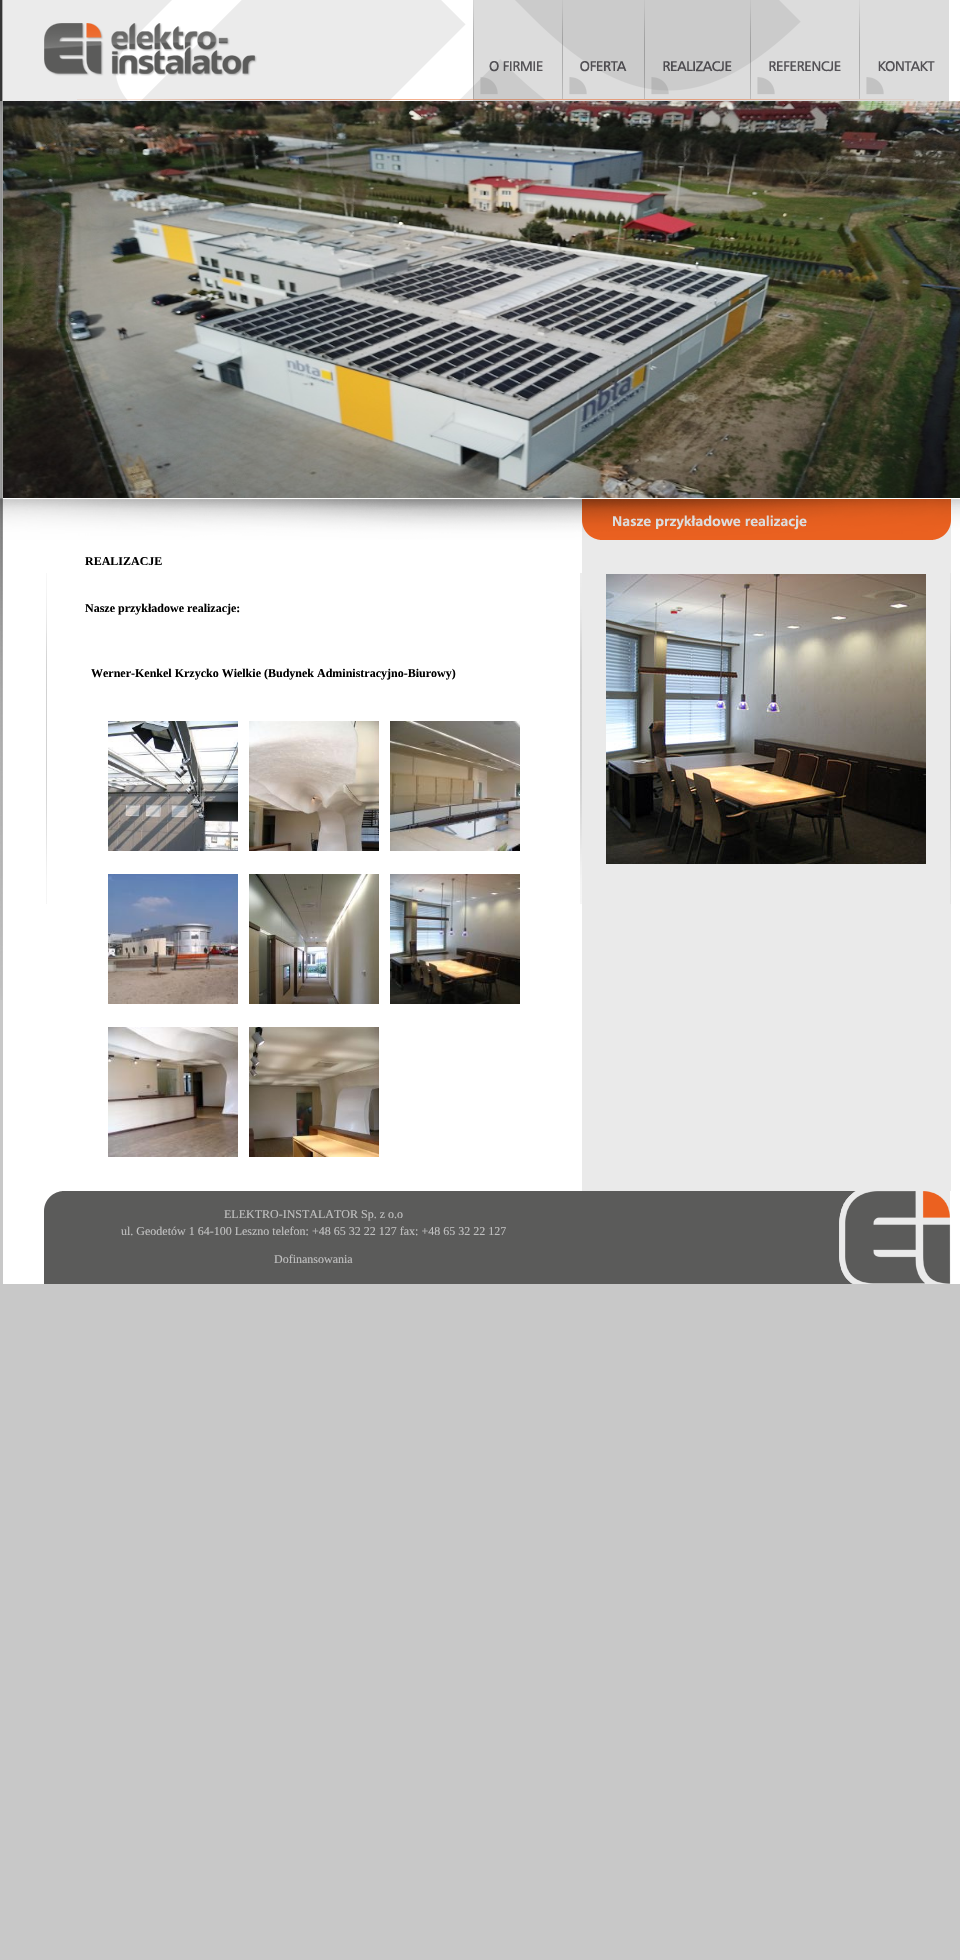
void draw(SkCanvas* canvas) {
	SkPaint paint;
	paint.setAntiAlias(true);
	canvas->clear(0xffc8c8c8);
	canvas->drawImageRect(SkImages::DeferredFromEncodedData(SkData::MakeFromFileName("img1.png")), SkRect::MakeXYWH(0, 0, 3, 1000), SkSamplingOptions());
	canvas->drawImageRect(SkImages::DeferredFromEncodedData(SkData::MakeFromFileName("img2.png")), SkRect::MakeXYWH(3, 0, 471, 101), SkSamplingOptions());
	canvas->drawImageRect(SkImages::DeferredFromEncodedData(SkData::MakeFromFileName("img3.png")), SkRect::MakeXYWH(474, 0, 88, 101), SkSamplingOptions());
	canvas->drawImageRect(SkImages::DeferredFromEncodedData(SkData::MakeFromFileName("img4.png")), SkRect::MakeXYWH(562, 0, 1, 101), SkSamplingOptions());
	canvas->drawImageRect(SkImages::DeferredFromEncodedData(SkData::MakeFromFileName("img5.png")), SkRect::MakeXYWH(563, 0, 81, 101), SkSamplingOptions());
	canvas->drawImageRect(SkImages::DeferredFromEncodedData(SkData::MakeFromFileName("img6.png")), SkRect::MakeXYWH(644, 0, 1, 101), SkSamplingOptions());
	canvas->drawImageRect(SkImages::DeferredFromEncodedData(SkData::MakeFromFileName("img7.png")), SkRect::MakeXYWH(645, 0, 105, 101), SkSamplingOptions());
	canvas->drawImageRect(SkImages::DeferredFromEncodedData(SkData::MakeFromFileName("img8.png")), SkRect::MakeXYWH(750, 0, 1, 101), SkSamplingOptions());
	canvas->drawImageRect(SkImages::DeferredFromEncodedData(SkData::MakeFromFileName("img9.png")), SkRect::MakeXYWH(751, 0, 108, 101), SkSamplingOptions());
	canvas->drawImageRect(SkImages::DeferredFromEncodedData(SkData::MakeFromFileName("img10.png")), SkRect::MakeXYWH(859, 0, 1, 101), SkSamplingOptions());
	canvas->drawImageRect(SkImages::DeferredFromEncodedData(SkData::MakeFromFileName("img11.png")), SkRect::MakeXYWH(860, 0, 89, 101), SkSamplingOptions());
	paint.setColor(0xffffffff);
	canvas->drawRect(SkRect::MakeXYWH(949, 0, 11, 101), paint);
	canvas->drawImageRect(SkImages::DeferredFromEncodedData(SkData::MakeFromFileName("img12.png")), SkRect::MakeXYWH(3, 101, 957, 397), SkSamplingOptions());
	canvas->drawImageRect(SkImages::DeferredFromEncodedData(SkData::MakeFromFileName("img13.png")), SkRect::MakeXYWH(3, 498, 578, 42), SkSamplingOptions());
	canvas->drawRect(SkRect::MakeXYWH(3, 540, 578, 651), paint);
	canvas->drawImageRect(SkImages::DeferredFromEncodedData(SkData::MakeFromFileName("img14.png")), SkRect::MakeXYWH(46, 573, 1, 331), SkSamplingOptions());
	SkFont f1(fontMgr->matchFamilyStyle("Liberation Serif", SkFontStyle::Bold()), 12);
	f1.setSubpixel(true);
	paint.setColor(0xff000000);
	canvas->drawString("REALIZACJE", 85, 565, f1, paint);
	canvas->drawString("Nasze przykładowe realizacje:", 85, 612, f1, paint);
	canvas->drawString("Werner-Kenkel Krzycko Wielkie (Budynek Administracyjno-Biurowy)", 91, 677, f1, paint);
	canvas->drawImageRect(SkImages::DeferredFromEncodedData(SkData::MakeFromFileName("img15.png")), SkRect::MakeXYWH(108, 721, 130, 130), SkSamplingOptions());
	canvas->drawImageRect(SkImages::DeferredFromEncodedData(SkData::MakeFromFileName("img16.png")), SkRect::MakeXYWH(108, 874, 130, 130), SkSamplingOptions());
	canvas->drawImageRect(SkImages::DeferredFromEncodedData(SkData::MakeFromFileName("img17.png")), SkRect::MakeXYWH(108, 1027, 130, 130), SkSamplingOptions());
	canvas->drawImageRect(SkImages::DeferredFromEncodedData(SkData::MakeFromFileName("img18.png")), SkRect::MakeXYWH(249, 721, 130, 130), SkSamplingOptions());
	canvas->drawImageRect(SkImages::DeferredFromEncodedData(SkData::MakeFromFileName("img19.png")), SkRect::MakeXYWH(249, 874, 130, 130), SkSamplingOptions());
	canvas->drawImageRect(SkImages::DeferredFromEncodedData(SkData::MakeFromFileName("img20.png")), SkRect::MakeXYWH(249, 1027, 130, 130), SkSamplingOptions());
	canvas->drawImageRect(SkImages::DeferredFromEncodedData(SkData::MakeFromFileName("img21.png")), SkRect::MakeXYWH(390, 721, 130, 130), SkSamplingOptions());
	canvas->drawImageRect(SkImages::DeferredFromEncodedData(SkData::MakeFromFileName("img22.png")), SkRect::MakeXYWH(390, 874, 130, 130), SkSamplingOptions());
	canvas->drawImageRect(SkImages::DeferredFromEncodedData(SkData::MakeFromFileName("img23.png")), SkRect::MakeXYWH(580, 573, 1, 331), SkSamplingOptions());
	canvas->drawImageRect(SkImages::DeferredFromEncodedData(SkData::MakeFromFileName("img24.png")), SkRect::MakeXYWH(581, 907, 379, 284), SkSamplingOptions());
	canvas->drawImageRect(SkImages::DeferredFromEncodedData(SkData::MakeFromFileName("img25.png")), SkRect::MakeXYWH(581, 498, 379, 42), SkSamplingOptions());
	paint.setColor(0xffeaeaea);
	canvas->drawRect(SkRect::MakeXYWH(582, 540, 368, 367), paint);
	canvas->drawImageRect(SkImages::DeferredFromEncodedData(SkData::MakeFromFileName("img26.png")), SkRect::MakeXYWH(581, 540, 1, 367), SkSamplingOptions());
	canvas->drawImageRect(SkImages::DeferredFromEncodedData(SkData::MakeFromFileName("img27.png")), SkRect::MakeXYWH(606, 574, 320, 290), SkSamplingOptions());
	paint.setColor(0xffffffff);
	canvas->drawRect(SkRect::MakeXYWH(951, 540, 9, 367), paint);
	canvas->drawImageRect(SkImages::DeferredFromEncodedData(SkData::MakeFromFileName("img28.png")), SkRect::MakeXYWH(950, 540, 1, 367), SkSamplingOptions());
	canvas->drawImageRect(SkImages::DeferredFromEncodedData(SkData::MakeFromFileName("img29.png")), SkRect::MakeXYWH(3, 1191, 77, 93), SkSamplingOptions());
	paint.setColor(0xff5b5b5a);
	canvas->drawRect(SkRect::MakeXYWH(80, 1191, 467, 93), paint);
	SkFont f2(fontMgr->matchFamilyStyle("Liberation Serif", SkFontStyle::Normal()), 12);
	f2.setSubpixel(true);
	paint.setColor(0xffc0c0c0);
	canvas->drawString("ELEKTRO-INSTALATOR Sp. z o.o", 224, 1218, f2, paint);
	canvas->drawString("ul. Geodetów 1 64-100 Leszno telefon: +48 65 32 22 127 fax: +48 65 32 22 127", 121, 1235, f2, paint);
	canvas->drawString("Dofinansowania", 274, 1263, f2, paint);
	canvas->drawImageRect(SkImages::DeferredFromEncodedData(SkData::MakeFromFileName("img30.png")), SkRect::MakeXYWH(547, 1191, 413, 93), SkSamplingOptions());
}
